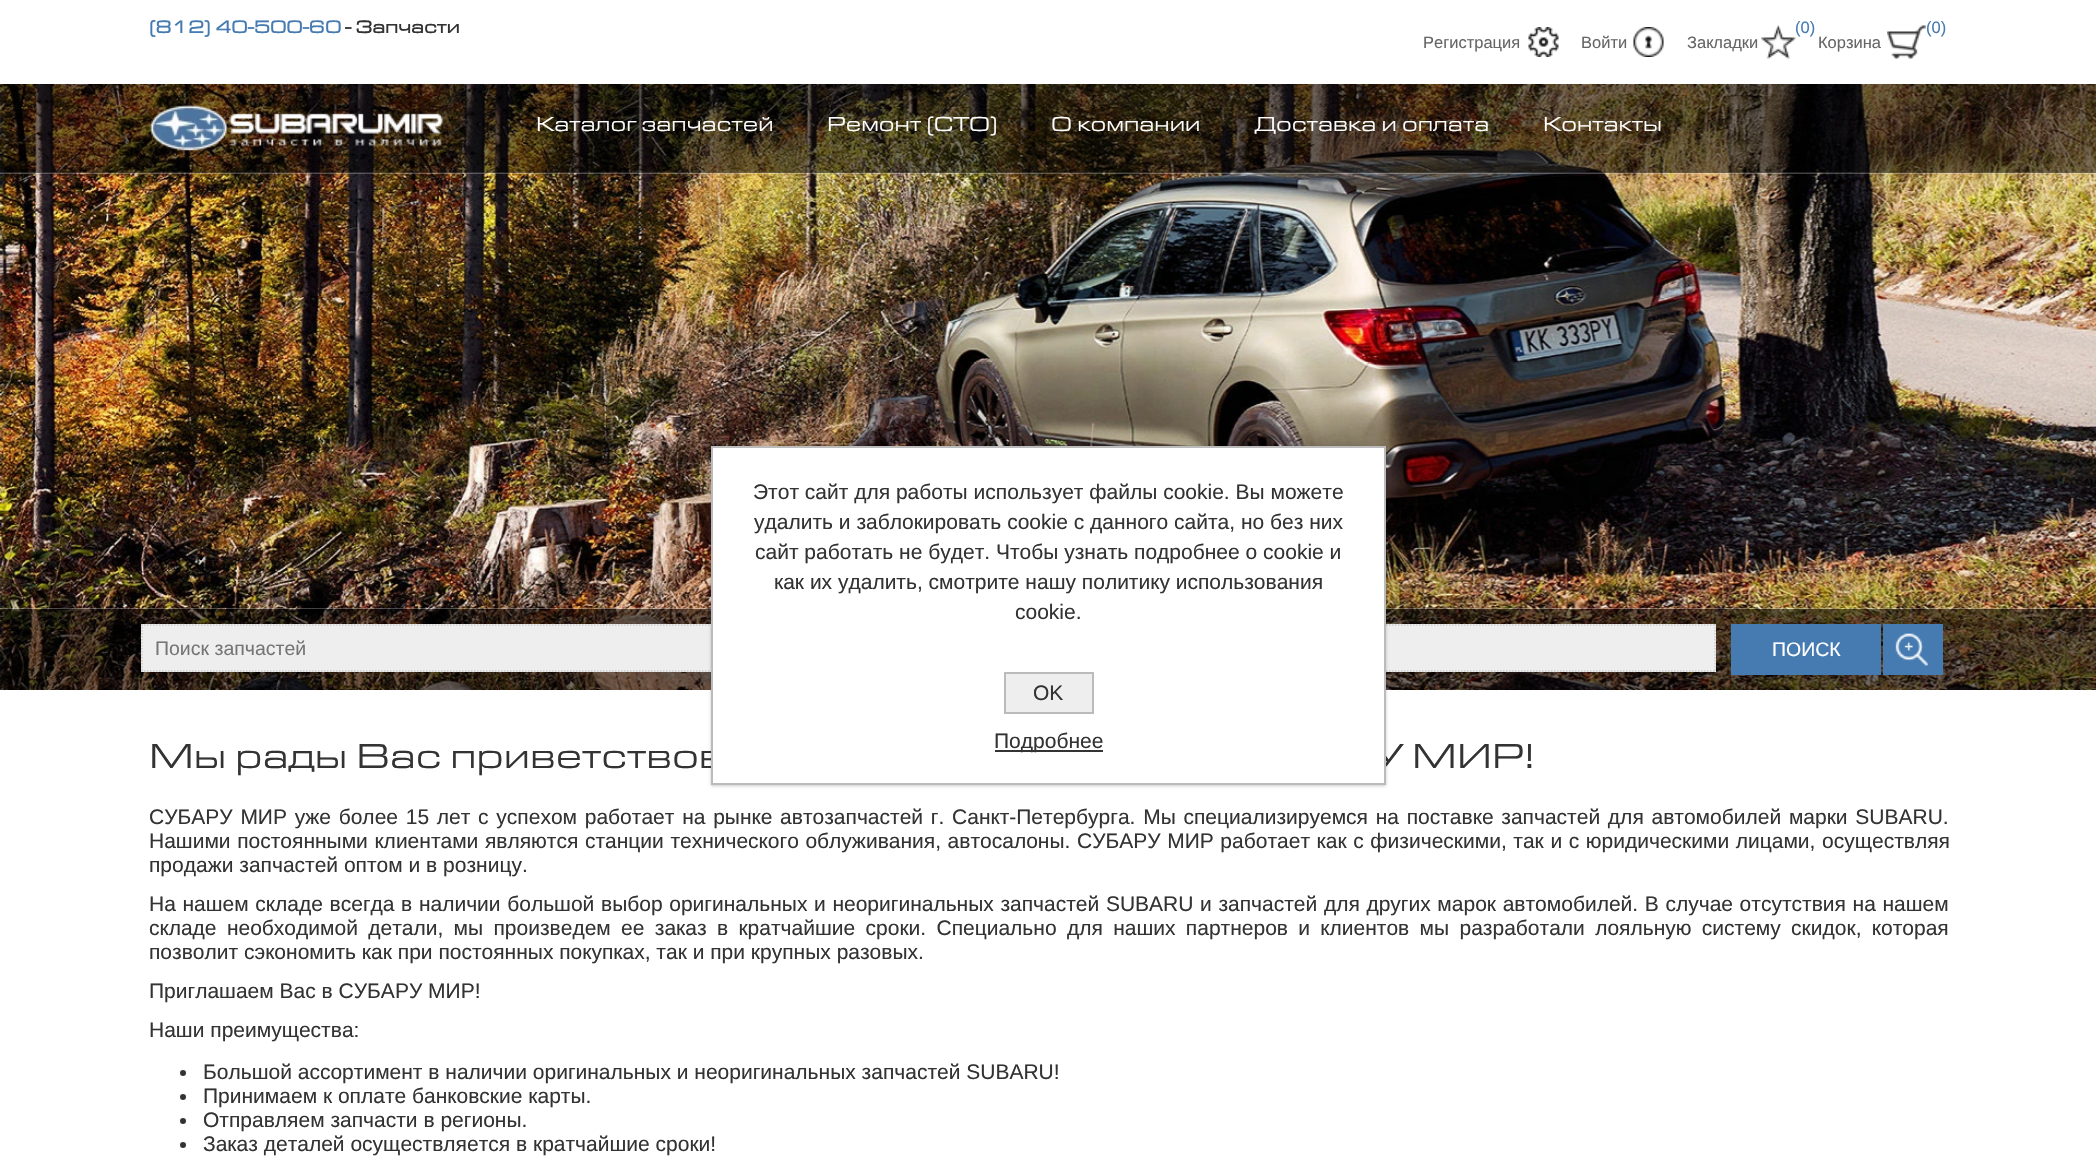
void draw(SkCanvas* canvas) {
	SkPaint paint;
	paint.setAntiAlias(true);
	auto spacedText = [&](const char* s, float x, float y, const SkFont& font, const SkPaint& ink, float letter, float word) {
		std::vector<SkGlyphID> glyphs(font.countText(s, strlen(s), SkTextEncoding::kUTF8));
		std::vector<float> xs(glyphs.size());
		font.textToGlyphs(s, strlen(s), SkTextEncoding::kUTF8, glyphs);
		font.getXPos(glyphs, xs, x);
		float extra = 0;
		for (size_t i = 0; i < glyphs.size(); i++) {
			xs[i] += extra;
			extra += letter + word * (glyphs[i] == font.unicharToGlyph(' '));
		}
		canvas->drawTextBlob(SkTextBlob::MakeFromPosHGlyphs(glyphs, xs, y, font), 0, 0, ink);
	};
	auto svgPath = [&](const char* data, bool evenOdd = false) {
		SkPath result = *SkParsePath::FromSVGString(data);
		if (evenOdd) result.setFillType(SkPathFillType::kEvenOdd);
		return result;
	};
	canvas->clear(0xffffffff);
	SkFont f1(fontMgr->matchFamilyStyle("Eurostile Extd", SkFontStyle::Bold()), 18);
	f1.setSubpixel(true);
	paint.setColor(0xff467bb1);
	canvas->drawString("(812) 40-500-60", 149, 33, f1, paint);
	paint.setColor(0xff333333);
	canvas->drawString("- Запчасти", 345, 33, f1, paint);
	canvas->drawImageRect(SkImages::DeferredFromEncodedData(SkData::MakeFromFileName("img1.png")), SkRect::MakeXYWH(1528, 27, 31, 30), SkSamplingOptions());
	SkFont f2(fontMgr->matchFamilyStyle("Liberation Sans", SkFontStyle::Normal()), 16.5);
	f2.setSubpixel(true);
	paint.setColor(0xff666666);
	canvas->drawString("Регистрация", 1423, 48, f2, paint);
	canvas->drawImageRect(SkImages::DeferredFromEncodedData(SkData::MakeFromFileName("img2.png")), SkRect::MakeXYWH(1633, 27, 31, 30), SkSamplingOptions());
	canvas->drawString("Войти", 1581, 48, f2, paint);
	canvas->drawImageRect(SkImages::DeferredFromEncodedData(SkData::MakeFromFileName("img3.png")), SkRect::MakeXYWH(1761, 25, 35, 34), SkSamplingOptions());
	paint.setColor(0xff467bb1);
	canvas->drawString("(0)", 1795, 33, f2, paint);
	paint.setColor(0xff666666);
	canvas->drawString("Закладки", 1687, 48, f2, paint);
	canvas->drawImageRect(SkImages::DeferredFromEncodedData(SkData::MakeFromFileName("img4.png")), SkRect::MakeXYWH(1887, 25, 39, 34), SkSamplingOptions());
	paint.setColor(0xff467bb1);
	canvas->drawString("(0)", 1926, 33, f2, paint);
	paint.setColor(0xff666666);
	canvas->drawString("Корзина", 1818, 48, f2, paint);
	canvas->drawImageRect(SkImages::DeferredFromEncodedData(SkData::MakeFromFileName("img5.png")), SkRect::MakeXYWH(0, 84, 2096, 606), SkSamplingOptions());
	paint.setColor(0x40ffffff);
	canvas->drawRect(SkRect::MakeXYWH(0, 172, 2096, 2), paint);
	paint.setColor(0x80000000);
	canvas->drawRect(SkRect::MakeXYWH(0, 84, 2096, 89), paint);
	canvas->drawImageRect(SkImages::DeferredFromEncodedData(SkData::MakeFromFileName("img6.png")), SkRect::MakeXYWH(149, 104, 294, 47), SkSamplingOptions());
	SkFont f3(fontMgr->matchFamilyStyle("Eurostile Extd", SkFontStyle::Normal()), 21);
	f3.setSubpixel(true);
	paint.setColor(0xffffffff);
	canvas->drawString("Каталог запчастей", 536, 131, f3, paint);
	canvas->drawString("Ремонт (СТО)", 827, 131, f3, paint);
	canvas->drawString("О компании", 1051, 131, f3, paint);
	canvas->drawString("Доставка и оплата", 1255, 131, f3, paint);
	canvas->drawString("Контакты", 1543, 131, f3, paint);
	paint.setColor(0x40ffffff);
	canvas->drawRect(SkRect::MakeXYWH(0, 608, 2096, 1), paint);
	paint.setColor(0x80000000);
	canvas->drawRect(SkRect::MakeXYWH(0, 609, 2096, 81), paint);
	paint.setColor(0xffeeeeee);
	canvas->drawRect(SkRect::MakeXYWH(141, 624, 1575, 48), paint);
	paint.setStroke(true);
	paint.setStrokeWidth(1.5);
	paint.setColor(0xffcccccc);
	paint.setPathEffect(SkDashPathEffect::Make({{1.5f, 1.5f}}, 0));
	canvas->drawPath(svgPath("M141 625H1716"), paint);
	paint.setPathEffect(nullptr);
	paint.setPathEffect(SkDashPathEffect::Make({{1.5f, 1.5f}}, 0));
	canvas->drawPath(svgPath("M1715 624V672"), paint);
	paint.setPathEffect(nullptr);
	paint.setPathEffect(SkDashPathEffect::Make({{1.5f, 1.5f}}, 0));
	canvas->drawPath(svgPath("M141 671H1716"), paint);
	paint.setPathEffect(nullptr);
	paint.setPathEffect(SkDashPathEffect::Make({{1.5f, 1.5f}}, 0));
	canvas->drawPath(svgPath("M142 624V672"), paint);
	paint.setPathEffect(nullptr);
	SkFont f4(fontMgr->matchFamilyStyle("Liberation Sans", SkFontStyle::Normal()), 19.5);
	f4.setSubpixel(true);
	paint.setStroke(false);
	paint.setColor(0xff757575);
	canvas->drawString("Поиск запчастей", 155, 655, f4, paint);
	paint.setColor(0xff467bb1);
	canvas->drawRect(SkRect::MakeXYWH(1731, 624, 150, 51), paint);
	paint.setColor(0xffffffff);
	canvas->drawString("ПОИСК", 1772, 656, f4, paint);
	paint.setColor(0xff467bb1);
	canvas->drawRect(SkRect::MakeXYWH(1883, 624, 60, 51), paint);
	canvas->drawImageRect(SkImages::DeferredFromEncodedData(SkData::MakeFromFileName("img7.png")), SkRect::MakeXYWH(1895, 633, 33, 33), SkSamplingOptions());
	SkFont f5(fontMgr->matchFamilyStyle("Eurostile Extd", SkFontStyle::Normal()), 36);
	f5.setSubpixel(true);
	paint.setColor(0xff333333);
	canvas->drawString("Мы рады Вас приветствов", 149, 768, f5, paint);
	canvas->drawString("У МИР!", 1374, 768, f5, paint);
	SkFont f6(fontMgr->matchFamilyStyle("Liberation Sans", SkFontStyle::Normal()), 21);
	f6.setSubpixel(true);
	spacedText("СУБАРУ МИР уже более 15 лет с успехом работает на рынке автозапчастей г. Санкт-Петербурга. Мы специализируемся на поставке запчастей для автомобилей марки SUBARU.", 149, 824, f6, paint, 0, 1.9);
	spacedText("Нашими постоянными клиентами являются станции технического облуживания, автосалоны. СУБАРУ МИР работает как с физическими, так и с юридическими лицами, осуществляя", 149, 848, f6, paint, 0, 0.75);
	canvas->drawString("продажи запчастей оптом и в розницу.", 149, 872, f6, paint);
	spacedText("На нашем складе всегда в наличии большой выбор оригинальных и неоригинальных запчастей SUBARU и запчастей для других марок автомобилей. В случае отсутствия на нашем", 149, 911, f6, paint, 0, 0.8);
	spacedText("складе необходимой детали, мы произведем ее заказ в кратчайшие сроки. Специально для наших партнеров и клиентов мы разработали лояльную систему скидок, которая", 149, 935, f6, paint, 0, 4.5);
	canvas->drawString("позволит сэкономить как при постоянных покупках, так и при крупных разовых.", 149, 959, f6, paint);
	canvas->drawString("Приглашаем Вас в СУБАРУ МИР!", 149, 998, f6, paint);
	canvas->drawString("Наши преимущества:", 149, 1037, f6, paint);
	canvas->drawCircle(183, 1073, 3, paint);
	canvas->drawString("Большой ассортимент в наличии оригинальных и неоригинальных запчастей SUBARU!", 203, 1079, f6, paint);
	canvas->drawCircle(183, 1097, 3, paint);
	canvas->drawString("Принимаем к оплате банковские карты.", 203, 1103, f6, paint);
	canvas->drawCircle(183, 1121, 3, paint);
	canvas->drawString("Отправляем запчасти в регионы.", 203, 1127, f6, paint);
	canvas->drawCircle(183, 1145, 3, paint);
	canvas->drawString("Заказ деталей осуществляется в кратчайшие сроки!", 203, 1151, f6, paint);
	paint.setColor(0x33000000);
	paint.setMaskFilter(SkMaskFilter::MakeBlur(kNormal_SkBlurStyle, 1.5));
	canvas->drawRect(SkRect::MakeXYWH(711, 447, 675, 339), paint);
	paint.setMaskFilter(nullptr);
	paint.setColor(0xffffffff);
	canvas->drawRect(SkRect::MakeXYWH(712, 447, 673, 337), paint);
	paint.setStroke(true);
	paint.setStrokeWidth(2);
	paint.setColor(0xffbbbbbb);
	canvas->drawRect(SkRect::MakeXYWH(712, 447, 673, 337), paint);
	paint.setStroke(false);
	paint.setColor(0xff333333);
	canvas->drawString("Этот сайт для работы использует файлы cookie. Вы можете", 753, 499, f6, paint);
	canvas->drawString("удалить и заблокировать cookie с данного сайта, но без них", 754, 529, f6, paint);
	canvas->drawString("сайт работать не будет. Чтобы узнать подробнее о cookie и", 755, 559, f6, paint);
	canvas->drawString("как их удалить, смотрите нашу политику использования", 774, 589, f6, paint);
	canvas->drawString("cookie.", 1015, 619, f6, paint);
	paint.setColor(0xffeeeeee);
	canvas->drawRect(SkRect::MakeXYWH(1005, 673, 88, 40), paint);
	paint.setStroke(true);
	paint.setColor(0xffbbbbbb);
	canvas->drawRect(SkRect::MakeXYWH(1005, 673, 88, 40), paint);
	paint.setStroke(false);
	paint.setColor(0xff333333);
	canvas->drawString("OK", 1033, 700, f6, paint);
	canvas->drawRect(SkRect::MakeXYWH(995, 750, 108, 2), paint);
	canvas->drawString("Подробнее", 994, 748, f6, paint);
}
